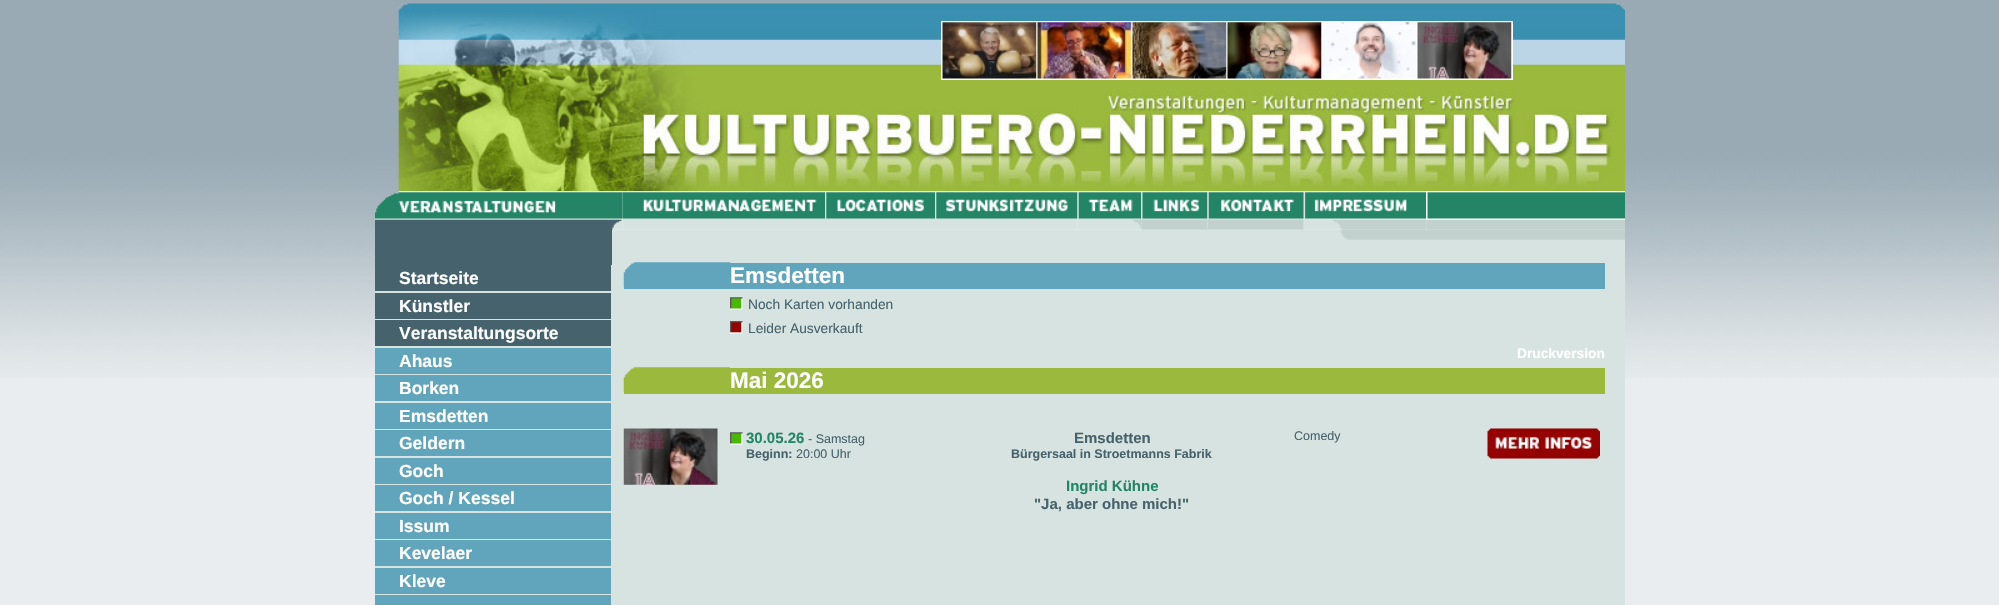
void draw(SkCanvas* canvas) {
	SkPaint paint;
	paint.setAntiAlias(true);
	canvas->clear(0xffe9edef);
	canvas->drawImageRect(SkImages::DeferredFromEncodedData(SkData::MakeFromFileName("img1.png")), SkRect::MakeXYWH(0, 0, 375, 378), SkSamplingOptions());
	canvas->drawImageRect(SkImages::DeferredFromEncodedData(SkData::MakeFromFileName("img2.png")), SkRect::MakeXYWH(1625, 0, 374, 378), SkSamplingOptions());
	paint.setColor(0xfff6f4ee);
	canvas->drawRect(SkRect::MakeXYWH(612, 191, 1013, 39), paint);
	canvas->drawImageRect(SkImages::DeferredFromEncodedData(SkData::MakeFromFileName("img3.png")), SkRect::MakeXYWH(375, 0, 1250, 191), SkSamplingOptions());
	paint.setColor(0xffffffff);
	canvas->drawRect(SkRect::MakeXYWH(941, 21, 572, 59), paint);
	canvas->drawImageRect(SkImages::DeferredFromEncodedData(SkData::MakeFromFileName("img4.png")), SkRect::MakeXYWH(942, 22, 95, 57), SkSamplingOptions());
	canvas->drawImageRect(SkImages::DeferredFromEncodedData(SkData::MakeFromFileName("img5.png")), SkRect::MakeXYWH(1037, 22, 95, 57), SkSamplingOptions());
	canvas->drawImageRect(SkImages::DeferredFromEncodedData(SkData::MakeFromFileName("img6.png")), SkRect::MakeXYWH(1132, 22, 95, 57), SkSamplingOptions());
	canvas->drawImageRect(SkImages::DeferredFromEncodedData(SkData::MakeFromFileName("img7.png")), SkRect::MakeXYWH(1227, 22, 95, 57), SkSamplingOptions());
	canvas->drawImageRect(SkImages::DeferredFromEncodedData(SkData::MakeFromFileName("img8.png")), SkRect::MakeXYWH(1322, 22, 95, 57), SkSamplingOptions());
	canvas->drawImageRect(SkImages::DeferredFromEncodedData(SkData::MakeFromFileName("img9.png")), SkRect::MakeXYWH(1417, 22, 95, 57), SkSamplingOptions());
	canvas->drawImageRect(SkImages::DeferredFromEncodedData(SkData::MakeFromFileName("img10.png")), SkRect::MakeXYWH(375, 191, 248, 39), SkSamplingOptions());
	canvas->drawImageRect(SkImages::DeferredFromEncodedData(SkData::MakeFromFileName("img11.png")), SkRect::MakeXYWH(622, 191, 203, 39), SkSamplingOptions());
	canvas->drawImageRect(SkImages::DeferredFromEncodedData(SkData::MakeFromFileName("img12.png")), SkRect::MakeXYWH(825, 191, 110, 39), SkSamplingOptions());
	canvas->drawImageRect(SkImages::DeferredFromEncodedData(SkData::MakeFromFileName("img13.png")), SkRect::MakeXYWH(935, 191, 143, 39), SkSamplingOptions());
	canvas->drawImageRect(SkImages::DeferredFromEncodedData(SkData::MakeFromFileName("img14.png")), SkRect::MakeXYWH(1077, 191, 65, 39), SkSamplingOptions());
	canvas->drawImageRect(SkImages::DeferredFromEncodedData(SkData::MakeFromFileName("img15.png")), SkRect::MakeXYWH(1141, 191, 67, 39), SkSamplingOptions());
	canvas->drawImageRect(SkImages::DeferredFromEncodedData(SkData::MakeFromFileName("img16.png")), SkRect::MakeXYWH(1207, 191, 97, 39), SkSamplingOptions());
	canvas->drawImageRect(SkImages::DeferredFromEncodedData(SkData::MakeFromFileName("img17.png")), SkRect::MakeXYWH(1303, 191, 124, 39), SkSamplingOptions());
	canvas->drawImageRect(SkImages::DeferredFromEncodedData(SkData::MakeFromFileName("img18.png")), SkRect::MakeXYWH(1426, 191, 199, 39), SkSamplingOptions());
	paint.setColor(0xffd7e3e0);
	canvas->drawRect(SkRect::MakeXYWH(375, 230, 1250, 375), paint);
	paint.setColor(0xff46626c);
	canvas->drawRect(SkRect::MakeXYWH(375, 229, 237, 36), paint);
	canvas->drawRect(SkRect::MakeXYWH(375, 265, 236, 26), paint);
	SkFont f1(fontMgr->matchFamilyStyle("Liberation Sans", SkFontStyle::Bold()), 17.5);
	f1.setSubpixel(true);
	paint.setColor(0xffffffff);
	canvas->drawString("Startseite", 399, 284, f1, paint);
	paint.setColor(0xff46626c);
	canvas->drawRect(SkRect::MakeXYWH(375, 293, 236, 26), paint);
	paint.setColor(0xffffffff);
	canvas->drawString("Künstler", 399, 312, f1, paint);
	paint.setColor(0xff46626c);
	canvas->drawRect(SkRect::MakeXYWH(375, 320, 236, 26), paint);
	paint.setColor(0xffffffff);
	canvas->drawString("Veranstaltungsorte", 399, 339, f1, paint);
	paint.setColor(0xff61a5bc);
	canvas->drawRect(SkRect::MakeXYWH(375, 348, 236, 26), paint);
	paint.setColor(0xffffffff);
	canvas->drawString("Ahaus", 399, 367, f1, paint);
	paint.setColor(0xff61a5bc);
	canvas->drawRect(SkRect::MakeXYWH(375, 375, 236, 26), paint);
	paint.setColor(0xffffffff);
	canvas->drawString("Borken", 399, 394, f1, paint);
	paint.setColor(0xff61a5bc);
	canvas->drawRect(SkRect::MakeXYWH(375, 403, 236, 26), paint);
	paint.setColor(0xffffffff);
	canvas->drawString("Emsdetten", 399, 422, f1, paint);
	paint.setColor(0xff61a5bc);
	canvas->drawRect(SkRect::MakeXYWH(375, 430, 236, 26), paint);
	paint.setColor(0xffffffff);
	canvas->drawString("Geldern", 399, 449, f1, paint);
	paint.setColor(0xff61a5bc);
	canvas->drawRect(SkRect::MakeXYWH(375, 458, 236, 26), paint);
	paint.setColor(0xffffffff);
	canvas->drawString("Goch", 399, 477, f1, paint);
	paint.setColor(0xff61a5bc);
	canvas->drawRect(SkRect::MakeXYWH(375, 485, 236, 26), paint);
	paint.setColor(0xffffffff);
	canvas->drawString("Goch / Kessel", 399, 504, f1, paint);
	paint.setColor(0xff61a5bc);
	canvas->drawRect(SkRect::MakeXYWH(375, 513, 236, 26), paint);
	paint.setColor(0xffffffff);
	canvas->drawString("Issum", 399, 532, f1, paint);
	paint.setColor(0xff61a5bc);
	canvas->drawRect(SkRect::MakeXYWH(375, 540, 236, 26), paint);
	paint.setColor(0xffffffff);
	canvas->drawString("Kevelaer", 399, 559, f1, paint);
	paint.setColor(0xff61a5bc);
	canvas->drawRect(SkRect::MakeXYWH(375, 568, 236, 26), paint);
	paint.setColor(0xffffffff);
	canvas->drawString("Kleve", 399, 587, f1, paint);
	paint.setColor(0xff61a5bc);
	canvas->drawRect(SkRect::MakeXYWH(375, 595, 236, 10), paint);
	canvas->drawImageRect(SkImages::DeferredFromEncodedData(SkData::MakeFromFileName("img19.png")), SkRect::MakeXYWH(1340, 229, 285, 11), SkSamplingOptions());
	canvas->drawRect(SkRect::MakeXYWH(624, 263, 981, 26), paint);
	canvas->drawImageRect(SkImages::DeferredFromEncodedData(SkData::MakeFromFileName("img20.png")), SkRect::MakeXYWH(623, 262, 107, 26), SkSamplingOptions());
	SkFont f2(fontMgr->matchFamilyStyle("Liberation Sans", SkFontStyle::Bold()), 22.5);
	f2.setSubpixel(true);
	paint.setColor(0xffffffff);
	canvas->drawString("Emsdetten", 730, 283, f2, paint);
	canvas->drawImageRect(SkImages::DeferredFromEncodedData(SkData::MakeFromFileName("img21.png")), SkRect::MakeXYWH(730, 297, 13, 13), SkSamplingOptions());
	SkFont f3(fontMgr->matchFamilyStyle("Liberation Sans", SkFontStyle::Normal()), 13.75);
	f3.setSubpixel(true);
	paint.setColor(0xff46626c);
	canvas->drawString("Noch Karten vorhanden", 748, 309, f3, paint);
	canvas->drawImageRect(SkImages::DeferredFromEncodedData(SkData::MakeFromFileName("img22.png")), SkRect::MakeXYWH(730, 321, 13, 13), SkSamplingOptions());
	canvas->drawString("Leider Ausverkauft", 748, 333, f3, paint);
	SkFont f4(fontMgr->matchFamilyStyle("Liberation Sans", SkFontStyle::Bold()), 13.75);
	f4.setSubpixel(true);
	paint.setColor(0xffffffff);
	canvas->drawString("Druckversion", 1517, 358, f4, paint);
	paint.setColor(0xff9bb93d);
	canvas->drawRect(SkRect::MakeXYWH(624, 368, 981, 26), paint);
	canvas->drawImageRect(SkImages::DeferredFromEncodedData(SkData::MakeFromFileName("img23.png")), SkRect::MakeXYWH(623, 367, 107, 26), SkSamplingOptions());
	paint.setColor(0xffffffff);
	canvas->drawString("Mai 2026", 730, 388, f2, paint);
	canvas->drawImageRect(SkImages::DeferredFromEncodedData(SkData::MakeFromFileName("img24.png")), SkRect::MakeXYWH(623, 428, 95, 57), SkSamplingOptions());
	canvas->drawImageRect(SkImages::DeferredFromEncodedData(SkData::MakeFromFileName("img21.png")), SkRect::MakeXYWH(730, 432, 13, 13), SkSamplingOptions());
	SkFont f5(fontMgr->matchFamilyStyle("Liberation Sans", SkFontStyle::Bold()), 15);
	f5.setSubpixel(true);
	paint.setColor(0xff238566);
	canvas->drawString("30.05.26", 746, 443, f5, paint);
	SkFont f6(fontMgr->matchFamilyStyle("Liberation Sans", SkFontStyle::Normal()), 12.5);
	f6.setSubpixel(true);
	paint.setColor(0xff46626c);
	canvas->drawString("- Samstag", 808, 443, f6, paint);
	SkFont f7(fontMgr->matchFamilyStyle("Liberation Sans", SkFontStyle::Bold()), 12.5);
	f7.setSubpixel(true);
	canvas->drawString("Beginn:", 746, 458, f7, paint);
	canvas->drawString("20:00 Uhr", 796, 458, f6, paint);
	canvas->drawString("Emsdetten", 1074, 443, f5, paint);
	canvas->drawString("Bürgersaal in Stroetmanns Fabrik", 1011, 458, f7, paint);
	paint.setColor(0xff238566);
	canvas->drawString("Ingrid Kühne", 1066, 491, f5, paint);
	paint.setColor(0xff46626c);
	canvas->drawString("\"Ja, aber ohne mich!\"", 1034, 509, f5, paint);
	canvas->drawString("Comedy", 1294, 440, f6, paint);
	canvas->drawImageRect(SkImages::DeferredFromEncodedData(SkData::MakeFromFileName("img25.png")), SkRect::MakeXYWH(1487, 428, 113, 31), SkSamplingOptions());
}
